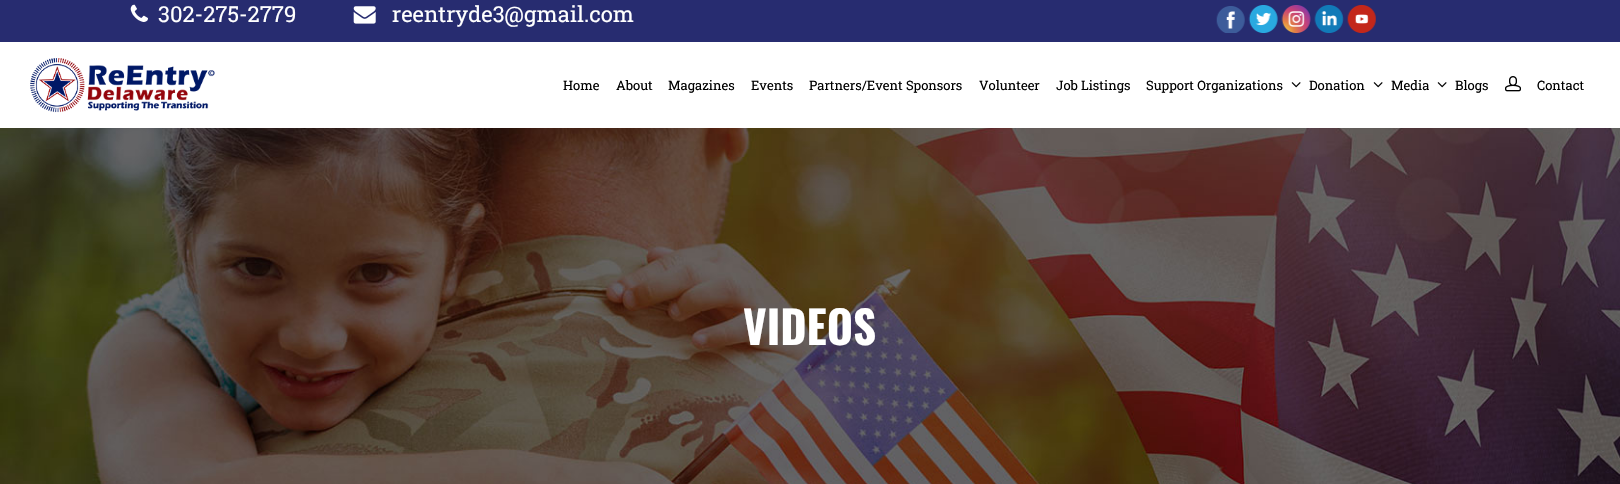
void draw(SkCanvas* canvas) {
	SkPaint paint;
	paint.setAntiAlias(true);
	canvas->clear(0xffffffff);
	paint.setColor(0xff272c70);
	canvas->drawRect(SkRect::MakeXYWH(0, 0, 1620, 42), paint);
	canvas->drawImageRect(SkImages::DeferredFromEncodedData(SkData::MakeFromFileName("img1.png")), SkRect::MakeXYWH(130, 4, 18, 18), SkSamplingOptions());
	SkFont f1(fontMgr->matchFamilyStyle("Roboto Slab", SkFontStyle::Normal()), 22);
	f1.setSubpixel(true);
	paint.setColor(0xffffffff);
	canvas->drawString("302-275-2779", 158, 22, f1, paint);
	canvas->drawImageRect(SkImages::DeferredFromEncodedData(SkData::MakeFromFileName("img2.png")), SkRect::MakeXYWH(353, 6, 23, 18), SkSamplingOptions());
	canvas->drawString("reentryde3@gmail.com", 392, 22, f1, paint);
	canvas->drawImageRect(SkImages::DeferredFromEncodedData(SkData::MakeFromFileName("img3.png")), SkRect::MakeXYWH(1216, 6, 29, 27), SkSamplingOptions());
	canvas->drawImageRect(SkImages::DeferredFromEncodedData(SkData::MakeFromFileName("img4.png")), SkRect::MakeXYWH(1248, 5, 30, 28), SkSamplingOptions());
	canvas->drawImageRect(SkImages::DeferredFromEncodedData(SkData::MakeFromFileName("img5.png")), SkRect::MakeXYWH(1281, 5, 30, 28), SkSamplingOptions());
	canvas->drawImageRect(SkImages::DeferredFromEncodedData(SkData::MakeFromFileName("img6.png")), SkRect::MakeXYWH(1314, 5, 30, 28), SkSamplingOptions());
	canvas->drawImageRect(SkImages::DeferredFromEncodedData(SkData::MakeFromFileName("img7.png")), SkRect::MakeXYWH(1347, 5, 29, 28), SkSamplingOptions());
	canvas->drawImageRect(SkImages::DeferredFromEncodedData(SkData::MakeFromFileName("img8.png")), SkRect::MakeXYWH(30, 58, 185, 55), SkSamplingOptions());
	SkFont f2(fontMgr->matchFamilyStyle("Roboto Slab", SkFontStyle::Normal()), 13);
	f2.setSubpixel(true);
	paint.setColor(0xff000000);
	canvas->drawString("Home", 563, 90, f2, paint);
	canvas->drawString("About", 616, 90, f2, paint);
	canvas->drawString("Magazines", 668, 90, f2, paint);
	canvas->drawString("Events", 751, 90, f2, paint);
	canvas->drawString("Partners/Event Sponsors", 809, 90, f2, paint);
	canvas->drawString("Volunteer", 979, 90, f2, paint);
	canvas->drawString("Job Listings", 1056, 90, f2, paint);
	canvas->drawString("Support Organizations", 1146, 90, f2, paint);
	canvas->drawImageRect(SkImages::DeferredFromEncodedData(SkData::MakeFromFileName("img9.png")), SkRect::MakeXYWH(1291, 82, 10, 6), SkSamplingOptions());
	canvas->drawString("Donation", 1309, 90, f2, paint);
	canvas->drawImageRect(SkImages::DeferredFromEncodedData(SkData::MakeFromFileName("img9.png")), SkRect::MakeXYWH(1373, 82, 10, 6), SkSamplingOptions());
	canvas->drawString("Media", 1391, 90, f2, paint);
	canvas->drawImageRect(SkImages::DeferredFromEncodedData(SkData::MakeFromFileName("img9.png")), SkRect::MakeXYWH(1437, 82, 10, 6), SkSamplingOptions());
	canvas->drawString("Blogs", 1455, 90, f2, paint);
	canvas->drawImageRect(SkImages::DeferredFromEncodedData(SkData::MakeFromFileName("img10.png")), SkRect::MakeXYWH(1505, 76, 16, 16), SkSamplingOptions());
	canvas->drawString("Contact", 1537, 90, f2, paint);
	canvas->drawImageRect(SkImages::DeferredFromEncodedData(SkData::MakeFromFileName("img11.png")), SkRect::MakeXYWH(0, 128, 1620, 356), SkSamplingOptions());
	SkFont f3(fontMgr->matchFamilyStyle("Oswald", SkFontStyle::Bold()), 45);
	f3.setSubpixel(true);
	paint.setColor(0xffffffff);
	canvas->drawString("VIDEOS", 743, 345, f3, paint);
}
